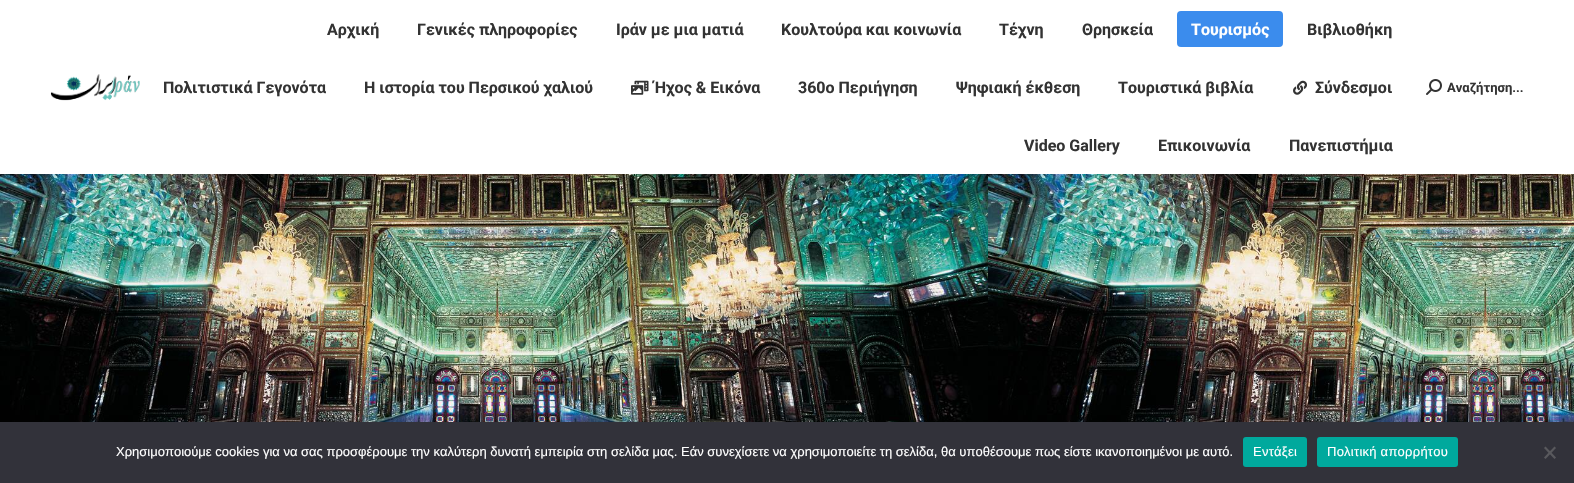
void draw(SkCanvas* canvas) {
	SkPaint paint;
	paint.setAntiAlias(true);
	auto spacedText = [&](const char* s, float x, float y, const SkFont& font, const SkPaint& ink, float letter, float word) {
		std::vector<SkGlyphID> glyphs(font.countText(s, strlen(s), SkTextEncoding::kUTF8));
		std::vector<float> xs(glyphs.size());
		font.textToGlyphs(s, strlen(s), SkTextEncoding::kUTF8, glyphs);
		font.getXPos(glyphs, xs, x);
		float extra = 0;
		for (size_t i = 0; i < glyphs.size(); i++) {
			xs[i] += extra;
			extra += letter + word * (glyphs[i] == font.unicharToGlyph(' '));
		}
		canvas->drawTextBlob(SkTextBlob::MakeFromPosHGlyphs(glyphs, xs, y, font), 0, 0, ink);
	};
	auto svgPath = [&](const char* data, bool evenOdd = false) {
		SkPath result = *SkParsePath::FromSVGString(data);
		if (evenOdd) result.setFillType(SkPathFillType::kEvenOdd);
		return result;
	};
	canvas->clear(0xffffffff);
	canvas->drawImageRect(SkImages::DeferredFromEncodedData(SkData::MakeFromFileName("img1.png")), SkRect::MakeXYWH(50, 74, 90, 27), SkSamplingOptions());
	SkFont f1(fontMgr->matchFamilyStyle("Roboto", SkFontStyle::Bold()), 16);
	f1.setSubpixel(true);
	paint.setColor(0xff333333);
	canvas->drawString("Αρχική", 327, 35, f1, paint);
	canvas->drawString("Γενικές πληροφορίες", 417, 35, f1, paint);
	canvas->drawString("Ιράν με μια ματιά", 616, 35, f1, paint);
	canvas->drawString("Κουλτούρα και κοινωνία", 781, 35, f1, paint);
	canvas->drawString("Τέχνη", 999, 35, f1, paint);
	canvas->drawString("Θρησκεία", 1082, 35, f1, paint);
	paint.setColor(0xff3b8ced);
	canvas->drawRoundRect(SkRect::MakeXYWH(1177, 11, 106, 36), 4, 4, paint);
	paint.setColor(0xffffffff);
	canvas->drawString("Τουρισμός", 1191, 35, f1, paint);
	paint.setColor(0xff333333);
	canvas->drawString("Βιβλιοθήκη", 1307, 35, f1, paint);
	canvas->drawString("Πολιτιστικά Γεγονότα", 163, 93, f1, paint);
	canvas->drawString("Η ιστορία του Περσικού χαλιού", 364, 93, f1, paint);
	canvas->drawImageRect(SkImages::DeferredFromEncodedData(SkData::MakeFromFileName("img2.png")), SkRect::MakeXYWH(631, 80, 18, 15), SkSamplingOptions());
	canvas->drawString("Ήχος & Εικόνα", 654, 93, f1, paint);
	canvas->drawString("360ο Περιήγηση", 798, 93, f1, paint);
	canvas->drawString("Ψηφιακή έκθεση", 956, 93, f1, paint);
	canvas->drawString("Τουριστικά βιβλία", 1118, 93, f1, paint);
	canvas->drawImageRect(SkImages::DeferredFromEncodedData(SkData::MakeFromFileName("img3.png")), SkRect::MakeXYWH(1293, 80, 14, 15), SkSamplingOptions());
	canvas->drawString("Σύνδεσμοι", 1315, 93, f1, paint);
	canvas->drawString("Video Gallery", 1024, 151, f1, paint);
	canvas->drawString("Επικοινωνία", 1158, 151, f1, paint);
	canvas->drawString("Πανεπιστήμια", 1289, 151, f1, paint);
	canvas->drawImageRect(SkImages::DeferredFromEncodedData(SkData::MakeFromFileName("img4.png")), SkRect::MakeXYWH(1426, 79, 16, 16), SkSamplingOptions());
	SkFont f2(fontMgr->matchFamilyStyle("Roboto", SkFontStyle::Bold()), 13);
	f2.setSubpixel(true);
	canvas->drawString("Αναζήτηση...", 1447, 92, f2, paint);
	canvas->drawImageRect(SkImages::DeferredFromEncodedData(SkData::MakeFromFileName("img5.png")), SkRect::MakeXYWH(0, 174, 1574, 248), SkSamplingOptions());
	paint.setColor(0xff32323a);
	canvas->drawRect(SkRect::MakeXYWH(0, 422, 1574, 61), paint);
	SkFont f3(fontMgr->matchFamilyStyle("Liberation Sans", SkFontStyle::Normal()), 13);
	f3.setSubpixel(true);
	paint.setColor(0xffffffff);
	canvas->drawString("Χρησιμοποιούμε cookies για να σας προσφέρουμε την καλύτερη δυνατή εμπειρία στη σελίδα μας. Εάν συνεχίσετε να χρησιμοποιείτε τη σελίδα, θα υποθέσουμε πως είστε ικανοποιημένοι με αυτό.", 116, 456, f3, paint);
	paint.setColor(0xff00a99d);
	canvas->drawRoundRect(SkRect::MakeXYWH(1243, 437, 64, 30), 3, 3, paint);
	paint.setColor(0xffffffff);
	spacedText("Εντάξει", 1253, 456, f3, paint, 0.25, 0);
	paint.setColor(0xff00a99d);
	canvas->drawRoundRect(SkRect::MakeXYWH(1317, 437, 141, 30), 3, 3, paint);
	paint.setColor(0xffffffff);
	spacedText("Πολιτική απορρήτου", 1327, 456, f3, paint, 0.25, 0);
	paint.setColor(0xff59595d);
	canvas->drawPath(svgPath("M1554.5 446.5L1556 448L1545.5 459L1544 457.5Z"), paint);
	canvas->drawPath(svgPath("M1544 448L1545.5 446.5L1556 457.5L1554.5 459Z"), paint);
}
